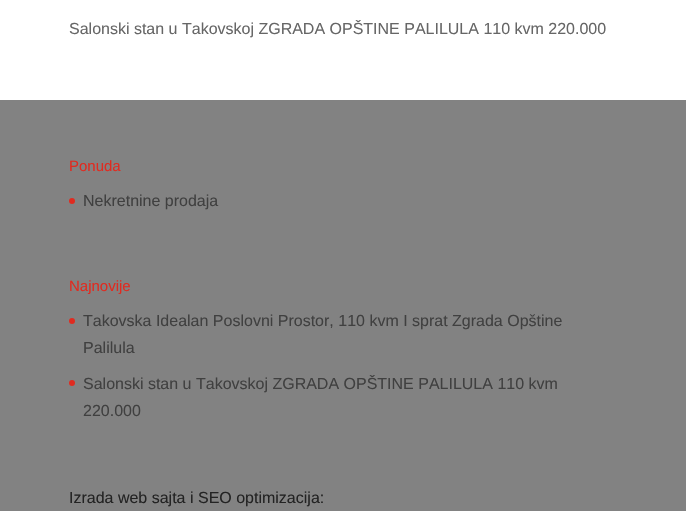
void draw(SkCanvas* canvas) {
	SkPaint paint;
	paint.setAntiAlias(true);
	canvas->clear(0xffffffff);
	SkFont f1(fontMgr->matchFamilyStyle("Liberation Sans", SkFontStyle::Normal()), 16);
	f1.setSubpixel(true);
	paint.setColor(0xff666666);
	canvas->drawString("Salonski stan u Takovskoj ZGRADA OPŠTINE PALILULA 110 kvm 220.000", 69, 34, f1, paint);
	paint.setColor(0xff828282);
	canvas->drawRect(SkRect::MakeXYWH(0, 100, 686, 411), paint);
	SkFont f2(fontMgr->matchFamilyStyle("Liberation Sans", SkFontStyle::Normal()), 15);
	f2.setSubpixel(true);
	paint.setColor(0xffe02b20);
	canvas->drawString("Ponuda", 69, 171, f2, paint);
	canvas->drawCircle(72, 201, 3, paint);
	paint.setColor(0xff404040);
	canvas->drawString("Nekretnine prodaja", 83, 206, f1, paint);
	paint.setColor(0xffe02b20);
	canvas->drawString("Najnovije", 69, 291, f2, paint);
	canvas->drawCircle(72, 321, 3, paint);
	paint.setColor(0xff404040);
	canvas->drawString("Takovska Idealan Poslovni Prostor, 110 kvm I sprat Zgrada Opštine", 83, 326, f1, paint);
	canvas->drawString("Palilula", 83, 353, f1, paint);
	paint.setColor(0xffe02b20);
	canvas->drawCircle(72, 383, 3, paint);
	paint.setColor(0xff404040);
	canvas->drawString("Salonski stan u Takovskoj ZGRADA OPŠTINE PALILULA 110 kvm", 83, 389, f1, paint);
	canvas->drawString("220.000", 83, 416, f1, paint);
	paint.setColor(0xff232323);
	canvas->drawString("Izrada web sajta i SEO optimizacija:", 69, 503, f1, paint);
}
